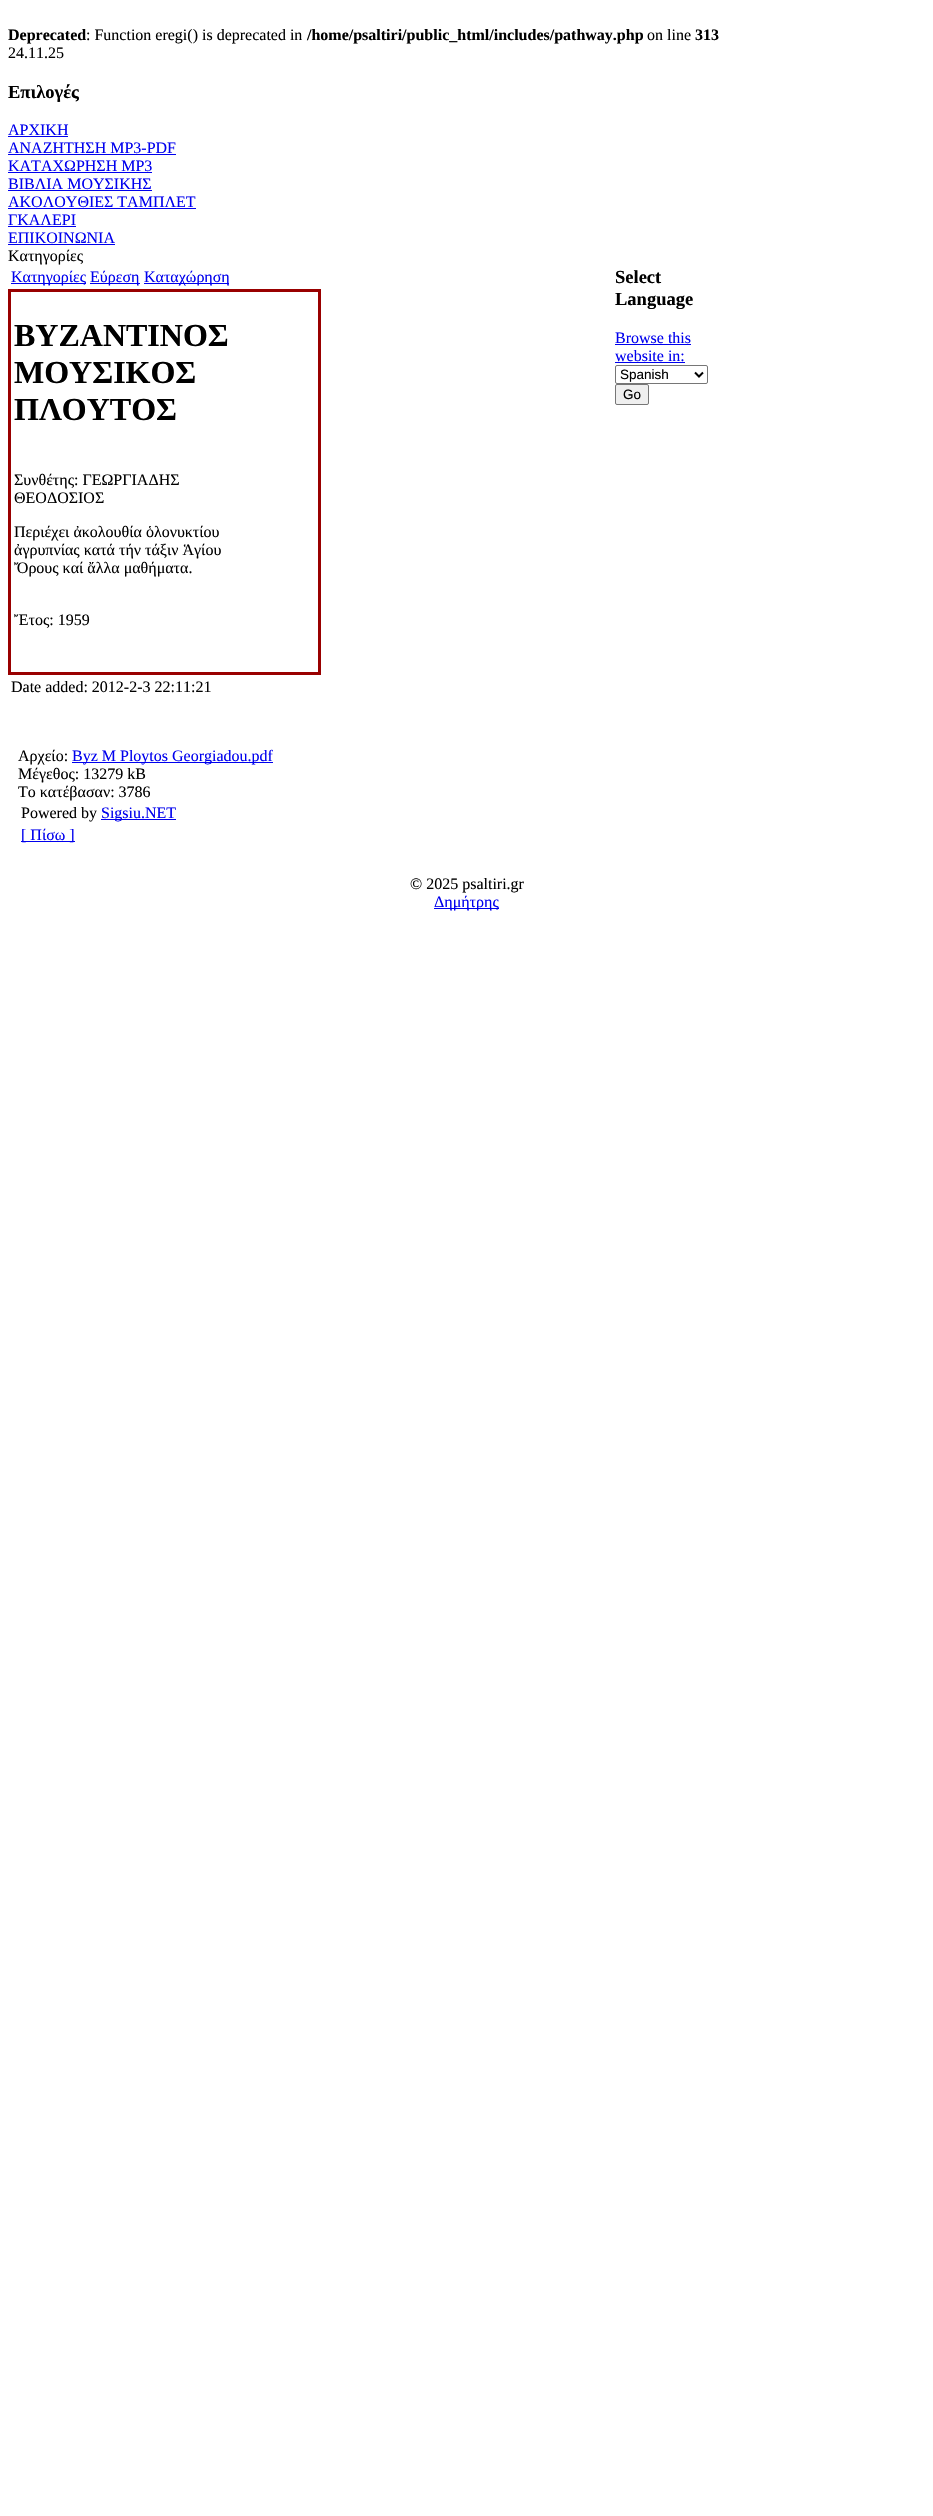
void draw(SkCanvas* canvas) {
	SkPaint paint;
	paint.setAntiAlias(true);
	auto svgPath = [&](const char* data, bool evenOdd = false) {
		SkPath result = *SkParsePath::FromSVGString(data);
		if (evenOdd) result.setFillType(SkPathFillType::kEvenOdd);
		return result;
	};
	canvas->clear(0xffffffff);
	SkFont f1(fontMgr->matchFamilyStyle("Liberation Serif", SkFontStyle::Bold()), 16);
	f1.setSubpixel(true);
	paint.setColor(0xff000000);
	canvas->drawString("Deprecated", 8, 40, f1, paint);
	SkFont f2(fontMgr->matchFamilyStyle("Liberation Serif", SkFontStyle::Normal()), 16);
	f2.setSubpixel(true);
	canvas->drawString(": Function eregi() is deprecated in", 86, 40, f2, paint);
	canvas->drawString("/home/psaltiri/public_html/includes/pathway.php", 307, 40, f1, paint);
	canvas->drawString("on line", 647, 40, f2, paint);
	canvas->drawString("313", 695, 40, f1, paint);
	canvas->drawString("24.11.25", 8, 58, f2, paint);
	SkFont f3(fontMgr->matchFamilyStyle("Liberation Serif", SkFontStyle::Bold()), 18.5);
	f3.setSubpixel(true);
	canvas->drawString("Επιλογές", 8, 98, f3, paint);
	paint.setColor(0xff0000ee);
	canvas->drawString("ΑΡΧΙΚΗ", 8, 135, f2, paint);
	canvas->drawRect(SkRect::MakeXYWH(8, 136, 60, 1), paint);
	canvas->drawString("ΑΝΑΖΗΤΗΣΗ MP3-PDF", 8, 153, f2, paint);
	canvas->drawRect(SkRect::MakeXYWH(8, 154, 168, 1), paint);
	canvas->drawString("ΚΑΤΑΧΩΡΗΣΗ MP3", 8, 171, f2, paint);
	canvas->drawRect(SkRect::MakeXYWH(8, 172, 144, 1), paint);
	canvas->drawString("ΒΙΒΛΙΑ ΜΟΥΣΙΚΗΣ", 8, 189, f2, paint);
	canvas->drawRect(SkRect::MakeXYWH(8, 190, 144, 1), paint);
	canvas->drawString("ΑΚΟΛΟΥΘΙΕΣ ΤΑΜΠΛΕΤ", 8, 207, f2, paint);
	canvas->drawRect(SkRect::MakeXYWH(8, 208, 188, 1), paint);
	canvas->drawString("ΓΚΑΛΕΡΙ", 8, 225, f2, paint);
	canvas->drawRect(SkRect::MakeXYWH(8, 226, 68, 1), paint);
	canvas->drawString("ΕΠΙΚΟΙΝΩΝΙΑ", 8, 243, f2, paint);
	canvas->drawRect(SkRect::MakeXYWH(8, 244, 107, 1), paint);
	paint.setColor(0xff000000);
	canvas->drawString("Κατηγορίες", 8, 261, f2, paint);
	paint.setColor(0xff0000ee);
	canvas->drawRect(SkRect::MakeXYWH(11, 283, 75, 1), paint);
	canvas->drawString("Κατηγορίες", 11, 282, f2, paint);
	canvas->drawRect(SkRect::MakeXYWH(90, 283, 50, 1), paint);
	canvas->drawString("Εύρεση", 90, 282, f2, paint);
	canvas->drawRect(SkRect::MakeXYWH(144, 283, 85, 1), paint);
	canvas->drawString("Καταχώρηση", 144, 282, f2, paint);
	paint.setStroke(true);
	paint.setStrokeWidth(3);
	paint.setColor(0xff990000);
	canvas->drawRect(SkRect::MakeXYWH(9.5, 290.5, 310, 383), paint);
	SkFont f4(fontMgr->matchFamilyStyle("Liberation Serif", SkFontStyle::Bold()), 32);
	f4.setSubpixel(true);
	paint.setStroke(false);
	paint.setColor(0xff000000);
	canvas->drawString("ΒΥΖΑΝΤΙΝΟΣ", 14, 346, f4, paint);
	canvas->drawString("ΜΟΥΣΙΚΟΣ", 14, 383, f4, paint);
	canvas->drawString("ΠΛΟΥΤΟΣ", 14, 420, f4, paint);
	canvas->drawString("Συνθέτης: ΓΕΩΡΓΙΑΔΗΣ", 14, 485, f2, paint);
	canvas->drawString("ΘΕΟΔΟΣΙΟΣ", 14, 503, f2, paint);
	canvas->drawString("Περιέχει ἀκολουθία ὁλονυκτίου", 14, 537, f2, paint);
	canvas->drawString("ἀγρυπνίας κατά τήν τάξιν Ἁγίου", 14, 555, f2, paint);
	canvas->drawString("Ὄρους καί ἄλλα μαθήματα.", 14, 573, f2, paint);
	canvas->drawString("Ἔτος: 1959", 14, 625, f2, paint);
	canvas->drawString("Date added: 2012-2-3 22:11:21", 11, 692, f2, paint);
	canvas->drawString("Αρχείο:", 18, 761, f2, paint);
	paint.setColor(0xff0000ee);
	canvas->drawRect(SkRect::MakeXYWH(72, 762, 201, 1), paint);
	canvas->drawString("Byz M Ploytos Georgiadou.pdf", 72, 761, f2, paint);
	paint.setColor(0xff000000);
	canvas->drawString("Μέγεθος: 13279 kB", 18, 779, f2, paint);
	canvas->drawString("Το κατέβασαν: 3786", 18, 797, f2, paint);
	canvas->drawString("Powered by", 21, 818, f2, paint);
	paint.setColor(0xff0000ee);
	canvas->drawRect(SkRect::MakeXYWH(101, 819, 75, 1), paint);
	canvas->drawString("Sigsiu.NET", 101, 818, f2, paint);
	canvas->drawRect(SkRect::MakeXYWH(21, 841, 54, 1), paint);
	canvas->drawString("[ Πίσω ]", 21, 840, f2, paint);
	paint.setColor(0xff000000);
	canvas->drawString("Select", 615, 283, f3, paint);
	canvas->drawString("Language", 615, 305, f3, paint);
	paint.setColor(0xff0000ee);
	canvas->drawString("Browse this", 615, 343, f2, paint);
	canvas->drawRect(SkRect::MakeXYWH(615, 344, 76, 1), paint);
	canvas->drawString("website in:", 615, 361, f2, paint);
	canvas->drawRect(SkRect::MakeXYWH(615, 362, 70, 1), paint);
	paint.setStroke(true);
	paint.setStrokeWidth(1);
	paint.setColor(0xff767676);
	canvas->drawRoundRect(SkRect::MakeXYWH(615.5, 365.5, 92, 18), 1.5, 1.5, paint);
	paint.setStrokeWidth(2);
	paint.setColor(0xff000000);
	canvas->drawPath(svgPath("M695 372.5L699 376.5L703 372.5"), paint);
	SkFont f5(fontMgr->matchFamilyStyle("Liberation Sans", SkFontStyle::Normal()), 13.5);
	f5.setSubpixel(true);
	paint.setStroke(false);
	canvas->drawString("Spanish", 620, 379, f5, paint);
	paint.setColor(0xffefefef);
	canvas->drawRoundRect(SkRect::MakeXYWH(615.5, 384.5, 33, 20), 1.5, 1.5, paint);
	paint.setStroke(true);
	paint.setStrokeWidth(1);
	paint.setColor(0xff767676);
	canvas->drawRoundRect(SkRect::MakeXYWH(615.5, 384.5, 33, 20), 1.5, 1.5, paint);
	paint.setStroke(false);
	paint.setColor(0xff000000);
	canvas->drawString("Go", 623, 399, f5, paint);
	canvas->drawString("© 2025 psaltiri.gr", 410, 889, f2, paint);
	paint.setColor(0xff0000ee);
	canvas->drawRect(SkRect::MakeXYWH(434, 908, 65, 1), paint);
	canvas->drawString("Δημήτρης", 434, 907, f2, paint);
}
